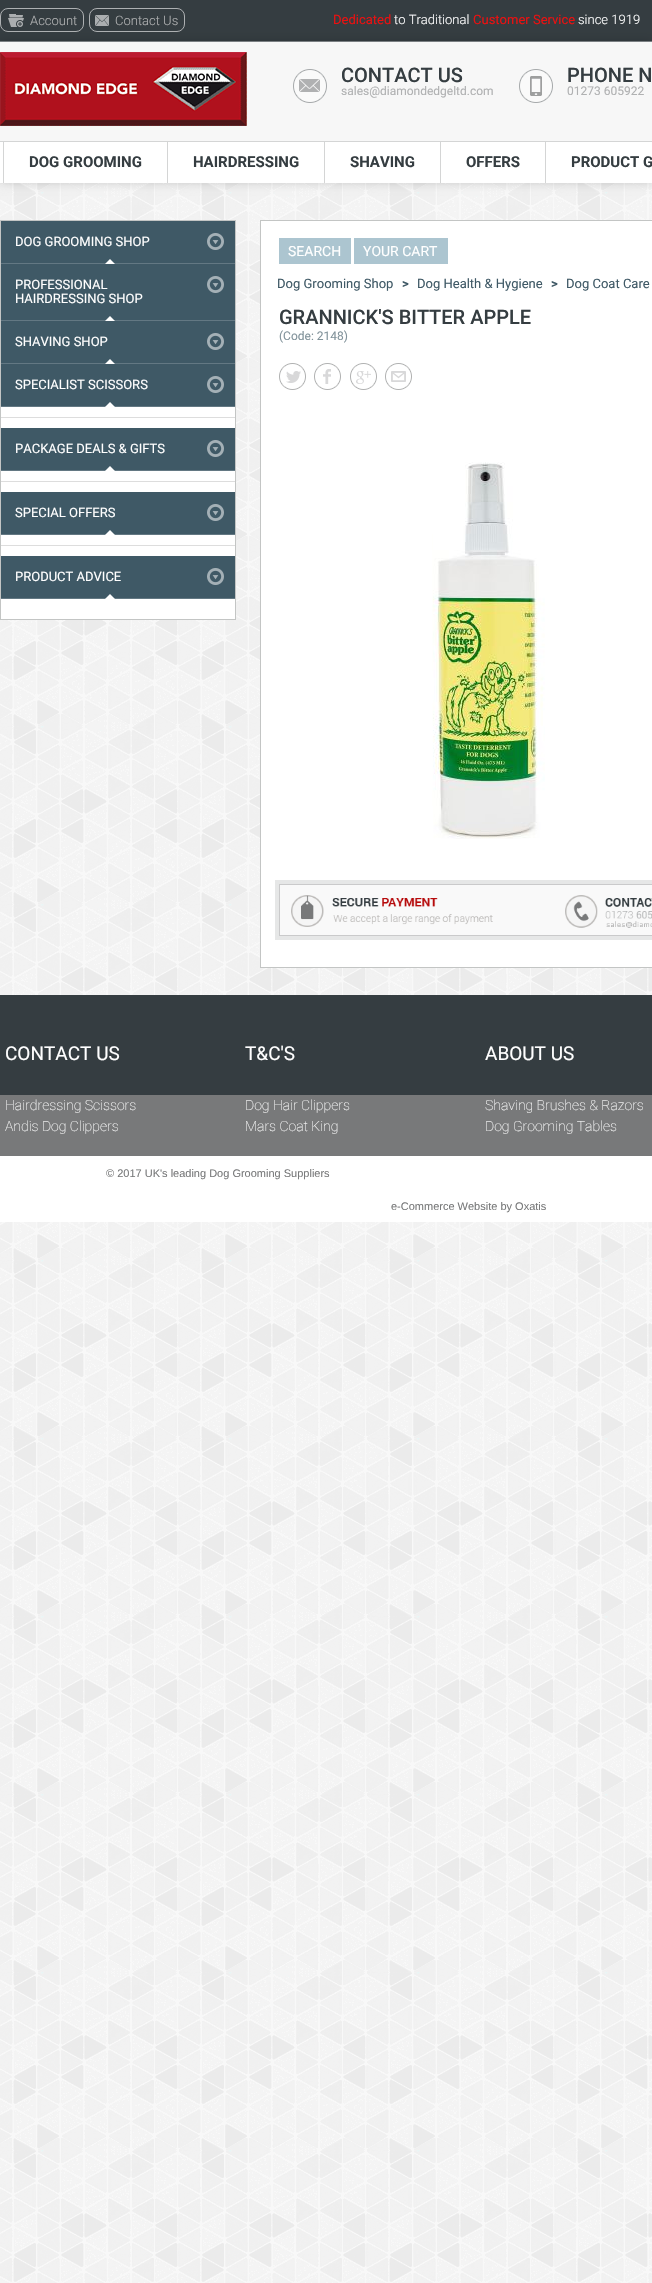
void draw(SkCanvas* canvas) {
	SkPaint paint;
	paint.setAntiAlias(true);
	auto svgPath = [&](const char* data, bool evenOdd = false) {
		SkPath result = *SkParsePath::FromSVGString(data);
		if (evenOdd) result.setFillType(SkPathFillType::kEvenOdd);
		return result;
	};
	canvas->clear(0xfff8f8f8);
	canvas->drawImageRect(SkImages::DeferredFromEncodedData(SkData::MakeFromFileName("img1.png")), SkRect::MakeXYWH(0, 183, 652, 2100), SkSamplingOptions());
	paint.setColor(0xff353d41);
	canvas->drawRect(SkRect::MakeXYWH(0, 0, 652, 41), paint);
	paint.setColor(0x2b000000);
	paint.setMaskFilter(SkMaskFilter::MakeBlur(kNormal_SkBlurStyle, 4.5));
	canvas->drawRect(SkRect::MakeXYWH(0, 41, 652, 142), paint);
	paint.setMaskFilter(nullptr);
	paint.setColor(0xffffffff);
	canvas->drawRect(SkRect::MakeXYWH(0, 142, 652, 41), paint);
	paint.setColor(0xff7b8083);
	canvas->drawRect(SkRect::MakeXYWH(0, 41, 652, 1), paint);
	paint.setStroke(true);
	paint.setStrokeWidth(1);
	paint.setColor(0xffadb0b2);
	canvas->drawRoundRect(SkRect::MakeXYWH(0.5, 8.5, 83, 23), 7.5, 7.5, paint);
	canvas->drawImageRect(SkImages::DeferredFromEncodedData(SkData::MakeFromFileName("img2.png")), SkRect::MakeXYWH(8, 14, 16, 13), SkSamplingOptions());
	SkFont f1(fontMgr->matchFamilyStyle("Roboto", SkFontStyle(300, SkFontStyle::kNormal_Width, SkFontStyle::kUpright_Slant)), 13);
	f1.setSubpixel(true);
	paint.setStroke(false);
	paint.setColor(0xffb0b1b2);
	canvas->drawString("Account", 30, 25, f1, paint);
	paint.setStroke(true);
	paint.setColor(0xffadb0b2);
	canvas->drawRoundRect(SkRect::MakeXYWH(89.5, 8.5, 95, 23), 7.5, 7.5, paint);
	canvas->drawImageRect(SkImages::DeferredFromEncodedData(SkData::MakeFromFileName("img3.png")), SkRect::MakeXYWH(95, 15, 14, 11), SkSamplingOptions());
	paint.setStroke(false);
	paint.setColor(0xffb0b1b2);
	canvas->drawString("Contact Us", 115, 25, f1, paint);
	SkFont f2(fontMgr->matchFamilyStyle("Roboto", SkFontStyle::Normal()), 13);
	f2.setSubpixel(true);
	paint.setColor(0xffeb1010);
	canvas->drawString("Dedicated", 333, 24, f2, paint);
	paint.setColor(0xffffffff);
	canvas->drawString("to Traditional", 394, 24, f1, paint);
	paint.setColor(0xffeb1010);
	canvas->drawString("Customer Service", 473, 24, f2, paint);
	paint.setColor(0xffffffff);
	canvas->drawString("since 1919", 578, 24, f1, paint);
	paint.setColor(0xfff7f7f7);
	canvas->drawRect(SkRect::MakeXYWH(0, 42, 652, 99), paint);
	canvas->drawImageRect(SkImages::DeferredFromEncodedData(SkData::MakeFromFileName("img4.png")), SkRect::MakeXYWH(0, 52, 247, 74), SkSamplingOptions());
	canvas->drawImageRect(SkImages::DeferredFromEncodedData(SkData::MakeFromFileName("img5.png")), SkRect::MakeXYWH(293, 69, 34, 34), SkSamplingOptions());
	SkFont f3(fontMgr->matchFamilyStyle("Roboto", SkFontStyle(500, SkFontStyle::kNormal_Width, SkFontStyle::kUpright_Slant)), 20);
	f3.setSubpixel(true);
	paint.setColor(0xff353d41);
	canvas->drawString("CONTACT US", 341, 82, f3, paint);
	SkFont f4(fontMgr->matchFamilyStyle("Roboto", SkFontStyle::Normal()), 12);
	f4.setSubpixel(true);
	paint.setColor(0xffb0b1b2);
	canvas->drawString("sales@diamondedgeltd.com", 341, 95, f4, paint);
	canvas->drawImageRect(SkImages::DeferredFromEncodedData(SkData::MakeFromFileName("img6.png")), SkRect::MakeXYWH(519, 69, 34, 34), SkSamplingOptions());
	paint.setColor(0xff353d41);
	canvas->drawString("PHONE N", 567, 82, f3, paint);
	paint.setColor(0xffb0b1b2);
	canvas->drawString("01273 605922", 567, 95, f4, paint);
	paint.setColor(0xffd4d5d5);
	canvas->drawRect(SkRect::MakeXYWH(3, 142, 1, 41), paint);
	canvas->drawRect(SkRect::MakeXYWH(167, 142, 1, 41), paint);
	SkFont f5(fontMgr->matchFamilyStyle("Roboto", SkFontStyle::Bold()), 15);
	f5.setSubpixel(true);
	paint.setColor(0xff353d41);
	canvas->drawString("DOG GROOMING", 29, 167, f5, paint);
	paint.setColor(0xffd4d5d5);
	canvas->drawRect(SkRect::MakeXYWH(324, 142, 1, 41), paint);
	paint.setColor(0xff353d41);
	canvas->drawString("HAIRDRESSING", 193, 167, f5, paint);
	paint.setColor(0xffd4d5d5);
	canvas->drawRect(SkRect::MakeXYWH(440, 142, 1, 41), paint);
	paint.setColor(0xff353d41);
	canvas->drawString("SHAVING", 350, 167, f5, paint);
	paint.setColor(0xffd4d5d5);
	canvas->drawRect(SkRect::MakeXYWH(545, 142, 1, 41), paint);
	paint.setColor(0xff353d41);
	canvas->drawString("OFFERS", 466, 167, f5, paint);
	canvas->drawString("PRODUCT G", 571, 167, f5, paint);
	paint.setColor(0xffd4d5d5);
	canvas->drawRect(SkRect::MakeXYWH(0, 141, 652, 1), paint);
	paint.setColor(0xffffffff);
	canvas->drawRect(SkRect::MakeXYWH(1, 407, 234, 212), paint);
	paint.setStroke(true);
	paint.setColor(0xffc3c5c4);
	canvas->drawRect(SkRect::MakeXYWH(0.5, 220.5, 235, 399), paint);
	paint.setStroke(false);
	paint.setColor(0xff3f5966);
	canvas->drawRect(SkRect::MakeXYWH(1, 221, 234, 42), paint);
	canvas->drawImageRect(SkImages::DeferredFromEncodedData(SkData::MakeFromFileName("img7.png")), SkRect::MakeXYWH(207, 233, 17, 17), SkSamplingOptions());
	paint.setColor(0xff637883);
	canvas->drawRect(SkRect::MakeXYWH(1, 263, 234, 1), paint);
	paint.setColor(0xffffffff);
	canvas->drawString("DOG GROOMING SHOP", 15, 246, f2, paint);
	canvas->drawPath(svgPath("M115 264H105L110 259Z"), paint);
	paint.setColor(0xff3f5966);
	canvas->drawRect(SkRect::MakeXYWH(1, 264, 234, 56), paint);
	canvas->drawImageRect(SkImages::DeferredFromEncodedData(SkData::MakeFromFileName("img7.png")), SkRect::MakeXYWH(207, 276, 17, 17), SkSamplingOptions());
	paint.setColor(0xff637883);
	canvas->drawRect(SkRect::MakeXYWH(1, 320, 234, 1), paint);
	paint.setColor(0xffffffff);
	canvas->drawString("PROFESSIONAL", 15, 289, f2, paint);
	canvas->drawString("HAIRDRESSING SHOP", 15, 303, f2, paint);
	canvas->drawPath(svgPath("M115 321H105L110 316Z"), paint);
	paint.setColor(0xff3f5966);
	canvas->drawRect(SkRect::MakeXYWH(1, 321, 234, 42), paint);
	canvas->drawImageRect(SkImages::DeferredFromEncodedData(SkData::MakeFromFileName("img7.png")), SkRect::MakeXYWH(207, 333, 17, 17), SkSamplingOptions());
	paint.setColor(0xff637883);
	canvas->drawRect(SkRect::MakeXYWH(1, 363, 234, 1), paint);
	paint.setColor(0xffffffff);
	canvas->drawString("SHAVING SHOP", 15, 346, f2, paint);
	canvas->drawPath(svgPath("M115 364H105L110 359Z"), paint);
	paint.setColor(0xff3f5966);
	canvas->drawRect(SkRect::MakeXYWH(1, 364, 234, 42), paint);
	canvas->drawImageRect(SkImages::DeferredFromEncodedData(SkData::MakeFromFileName("img7.png")), SkRect::MakeXYWH(207, 376, 17, 17), SkSamplingOptions());
	paint.setColor(0xff637883);
	canvas->drawRect(SkRect::MakeXYWH(1, 406, 234, 1), paint);
	paint.setColor(0xffffffff);
	canvas->drawString("SPECIALIST SCISSORS", 15, 389, f2, paint);
	canvas->drawPath(svgPath("M115 407H105L110 402Z"), paint);
	paint.setColor(0xffdddddd);
	canvas->drawRect(SkRect::MakeXYWH(1, 417, 234, 1), paint);
	paint.setColor(0xff3f5966);
	canvas->drawRect(SkRect::MakeXYWH(1, 428, 234, 42), paint);
	canvas->drawImageRect(SkImages::DeferredFromEncodedData(SkData::MakeFromFileName("img7.png")), SkRect::MakeXYWH(207, 440, 17, 17), SkSamplingOptions());
	paint.setColor(0xff637883);
	canvas->drawRect(SkRect::MakeXYWH(1, 470, 234, 1), paint);
	paint.setColor(0xffffffff);
	canvas->drawString("PACKAGE DEALS & GIFTS", 15, 453, f2, paint);
	canvas->drawPath(svgPath("M115 471H105L110 466Z"), paint);
	paint.setColor(0xffdddddd);
	canvas->drawRect(SkRect::MakeXYWH(1, 481, 234, 1), paint);
	paint.setColor(0xff3f5966);
	canvas->drawRect(SkRect::MakeXYWH(1, 492, 234, 42), paint);
	canvas->drawImageRect(SkImages::DeferredFromEncodedData(SkData::MakeFromFileName("img7.png")), SkRect::MakeXYWH(207, 504, 17, 17), SkSamplingOptions());
	paint.setColor(0xff637883);
	canvas->drawRect(SkRect::MakeXYWH(1, 534, 234, 1), paint);
	paint.setColor(0xffffffff);
	canvas->drawString("SPECIAL OFFERS", 15, 517, f2, paint);
	canvas->drawPath(svgPath("M115 535H105L110 530Z"), paint);
	paint.setColor(0xffdddddd);
	canvas->drawRect(SkRect::MakeXYWH(1, 545, 234, 1), paint);
	paint.setColor(0xff3f5966);
	canvas->drawRect(SkRect::MakeXYWH(1, 556, 234, 42), paint);
	canvas->drawImageRect(SkImages::DeferredFromEncodedData(SkData::MakeFromFileName("img7.png")), SkRect::MakeXYWH(207, 568, 17, 17), SkSamplingOptions());
	paint.setColor(0xff637883);
	canvas->drawRect(SkRect::MakeXYWH(1, 598, 234, 1), paint);
	paint.setColor(0xffffffff);
	canvas->drawString("PRODUCT ADVICE", 15, 581, f2, paint);
	canvas->drawPath(svgPath("M115 599H105L110 594Z"), paint);
	canvas->drawRect(SkRect::MakeXYWH(260.5, 220.5, 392, 747), paint);
	paint.setStroke(true);
	paint.setColor(0xffc3c5c4);
	canvas->drawRect(SkRect::MakeXYWH(260.5, 220.5, 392, 747), paint);
	paint.setStroke(false);
	paint.setColor(0xffacc5d0);
	canvas->drawRect(SkRect::MakeXYWH(279, 238, 72, 26), paint);
	SkFont f6(fontMgr->matchFamilyStyle("Roboto", SkFontStyle::Normal()), 14);
	f6.setSubpixel(true);
	paint.setColor(0xffffffff);
	canvas->drawString("SEARCH", 288, 256, f6, paint);
	paint.setColor(0xffacc5d0);
	canvas->drawRect(SkRect::MakeXYWH(354, 238, 94, 26), paint);
	paint.setColor(0xffffffff);
	canvas->drawString("YOUR CART", 363, 256, f6, paint);
	paint.setColor(0xff3f5966);
	canvas->drawString("Dog Grooming Shop", 277, 288, f2, paint);
	SkFont f7(fontMgr->matchFamilyStyle("Roboto", SkFontStyle::Bold()), 13);
	f7.setSubpixel(true);
	canvas->drawString(">", 402, 288, f7, paint);
	canvas->drawString("Dog Health & Hygiene", 417, 288, f2, paint);
	canvas->drawString(">", 551, 288, f7, paint);
	canvas->drawString("Dog Coat Care", 566, 288, f2, paint);
	paint.setColor(0xff353d41);
	canvas->drawString("GRANNICK'S BITTER APPLE", 279, 324, f3, paint);
	paint.setColor(0xff82939b);
	canvas->drawString("(Code: 2148)", 279, 340, f4, paint);
	canvas->drawImageRect(SkImages::DeferredFromEncodedData(SkData::MakeFromFileName("img8.png")), SkRect::MakeXYWH(279, 363, 27, 27), SkSamplingOptions());
	canvas->drawImageRect(SkImages::DeferredFromEncodedData(SkData::MakeFromFileName("img9.png")), SkRect::MakeXYWH(314, 363, 27, 27), SkSamplingOptions());
	canvas->drawImageRect(SkImages::DeferredFromEncodedData(SkData::MakeFromFileName("img10.png")), SkRect::MakeXYWH(350, 363, 27, 27), SkSamplingOptions());
	canvas->drawImageRect(SkImages::DeferredFromEncodedData(SkData::MakeFromFileName("img11.png")), SkRect::MakeXYWH(385, 363, 27, 27), SkSamplingOptions());
	canvas->drawImageRect(SkImages::DeferredFromEncodedData(SkData::MakeFromFileName("img12.png")), SkRect::MakeXYWH(432, 462, 113, 377), SkSamplingOptions());
	paint.setStroke(true);
	paint.setStrokeWidth(4);
	paint.setColor(0xffe6e7e7);
	canvas->drawRect(SkRect::MakeXYWH(277, 882, 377, 56), paint);
	paint.setStroke(false);
	paint.setColor(0xfff9f9f9);
	canvas->drawRect(SkRect::MakeXYWH(279.5, 884.5, 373, 51), paint);
	paint.setStroke(true);
	paint.setStrokeWidth(1);
	paint.setColor(0xffcacacb);
	canvas->drawRect(SkRect::MakeXYWH(279.5, 884.5, 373, 51), paint);
	canvas->drawImageRect(SkImages::DeferredFromEncodedData(SkData::MakeFromFileName("img13.png")), SkRect::MakeXYWH(291, 895, 202, 32), SkSamplingOptions());
	canvas->drawImageRect(SkImages::DeferredFromEncodedData(SkData::MakeFromFileName("img14.png")), SkRect::MakeXYWH(565, 895, 87, 33), SkSamplingOptions());
	paint.setStroke(false);
	paint.setColor(0xff353d41);
	canvas->drawRect(SkRect::MakeXYWH(0, 995, 652, 100), paint);
	SkFont f8(fontMgr->matchFamilyStyle("Roboto", SkFontStyle::Normal()), 19);
	f8.setSubpixel(true);
	paint.setColor(0xffffffff);
	canvas->drawString("CONTACT US", 5, 1060, f8, paint);
	canvas->drawString("T&C'S", 245, 1060, f8, paint);
	canvas->drawString("ABOUT US", 485, 1060, f8, paint);
	paint.setColor(0xff78797a);
	canvas->drawRect(SkRect::MakeXYWH(0, 1095, 652, 61), paint);
	SkFont f9(fontMgr->matchFamilyStyle("Roboto", SkFontStyle(100, SkFontStyle::kNormal_Width, SkFontStyle::kUpright_Slant)), 14);
	f9.setSubpixel(true);
	paint.setColor(0xffffffff);
	canvas->drawString("Hairdressing Scissors", 5, 1110, f9, paint);
	canvas->drawString("Dog Hair Clippers", 245, 1110, f9, paint);
	canvas->drawString("Shaving Brushes & Razors", 485, 1110, f9, paint);
	canvas->drawString("Andis Dog Clippers", 5, 1131, f9, paint);
	canvas->drawString("Mars Coat King", 245, 1131, f9, paint);
	canvas->drawString("Dog Grooming Tables", 485, 1131, f9, paint);
	canvas->drawRect(SkRect::MakeXYWH(0, 1156, 652, 66), paint);
	SkFont f10(fontMgr->matchFamilyStyle("Liberation Sans", SkFontStyle::Normal()), 11);
	f10.setSubpixel(true);
	paint.setColor(0xff78797a);
	canvas->drawString("© 2017 UK's leading Dog Grooming Suppliers", 106, 1177, f10, paint);
	canvas->drawString("e-Commerce Website by Oxatis", 391, 1210, f10, paint);
}
